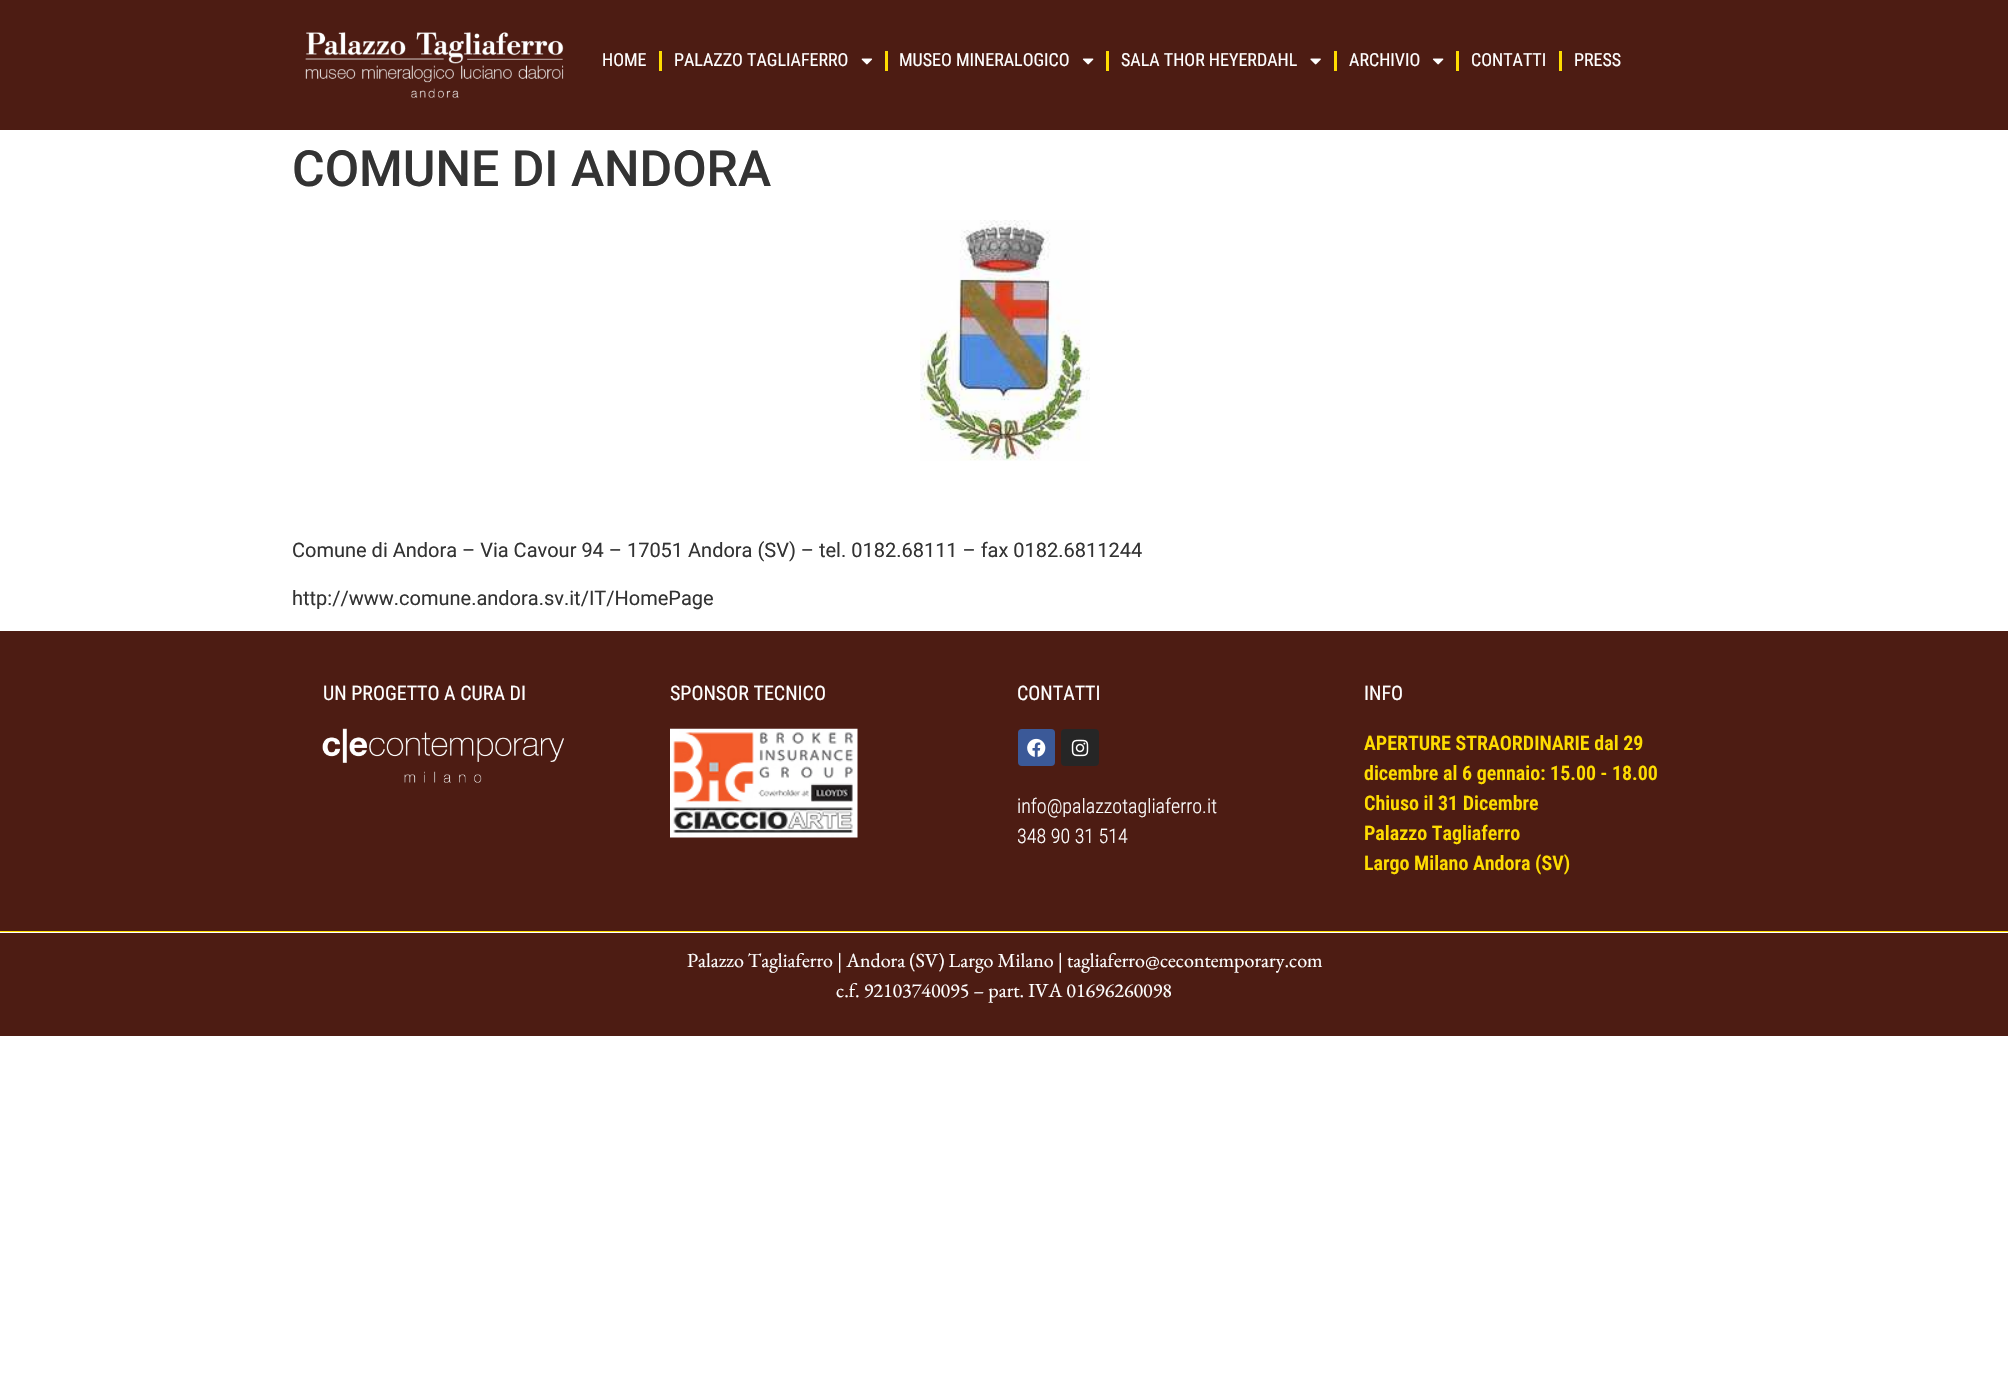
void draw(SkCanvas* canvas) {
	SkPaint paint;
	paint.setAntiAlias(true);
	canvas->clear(0xffffffff);
	paint.setColor(0xff4d1c13);
	canvas->drawRect(SkRect::MakeXYWH(0, 0, 2008, 130), paint);
	canvas->drawImageRect(SkImages::DeferredFromEncodedData(SkData::MakeFromFileName("img1.png")), SkRect::MakeXYWH(305, 32, 259, 66), SkSamplingOptions());
	SkFont f1(fontMgr->matchFamilyStyle("Roboto Condensed", SkFontStyle::Normal()), 18);
	f1.setSubpixel(true);
	paint.setColor(0xffffffff);
	canvas->drawString("HOME", 602, 66, f1, paint);
	paint.setColor(0xffffdc00);
	canvas->drawRect(SkRect::MakeXYWH(659, 51, 3, 20), paint);
	paint.setColor(0xffffffff);
	canvas->drawString("PALAZZO TAGLIAFERRO", 674, 66, f1, paint);
	canvas->drawImageRect(SkImages::DeferredFromEncodedData(SkData::MakeFromFileName("img2.png")), SkRect::MakeXYWH(861, 58, 12, 7), SkSamplingOptions());
	paint.setColor(0xffffdc00);
	canvas->drawRect(SkRect::MakeXYWH(885, 51, 3, 20), paint);
	paint.setColor(0xffffffff);
	canvas->drawString("MUSEO MINERALOGICO", 899, 66, f1, paint);
	canvas->drawImageRect(SkImages::DeferredFromEncodedData(SkData::MakeFromFileName("img3.png")), SkRect::MakeXYWH(1082, 58, 12, 7), SkSamplingOptions());
	paint.setColor(0xffffdc00);
	canvas->drawRect(SkRect::MakeXYWH(1106, 51, 3, 20), paint);
	paint.setColor(0xffffffff);
	canvas->drawString("SALA THOR HEYERDAHL", 1121, 66, f1, paint);
	canvas->drawImageRect(SkImages::DeferredFromEncodedData(SkData::MakeFromFileName("img4.png")), SkRect::MakeXYWH(1310, 58, 11, 7), SkSamplingOptions());
	paint.setColor(0xffffdc00);
	canvas->drawRect(SkRect::MakeXYWH(1334, 51, 3, 20), paint);
	paint.setColor(0xffffffff);
	canvas->drawString("ARCHIVIO", 1349, 66, f1, paint);
	canvas->drawImageRect(SkImages::DeferredFromEncodedData(SkData::MakeFromFileName("img3.png")), SkRect::MakeXYWH(1432, 58, 12, 7), SkSamplingOptions());
	paint.setColor(0xffffdc00);
	canvas->drawRect(SkRect::MakeXYWH(1456, 51, 3, 20), paint);
	paint.setColor(0xffffffff);
	canvas->drawString("CONTATTI", 1471, 66, f1, paint);
	paint.setColor(0xffffdc00);
	canvas->drawRect(SkRect::MakeXYWH(1559, 51, 3, 20), paint);
	paint.setColor(0xffffffff);
	canvas->drawString("PRESS", 1574, 66, f1, paint);
	SkFont f2(fontMgr->matchFamilyStyle("Roboto", SkFontStyle(500, SkFontStyle::kNormal_Width, SkFontStyle::kUpright_Slant)), 50);
	f2.setSubpixel(true);
	paint.setColor(0xff333333);
	canvas->drawString("COMUNE DI ANDORA", 292, 186, f2, paint);
	canvas->drawImageRect(SkImages::DeferredFromEncodedData(SkData::MakeFromFileName("img5.png")), SkRect::MakeXYWH(920, 220, 170, 241), SkSamplingOptions());
	SkFont f3(fontMgr->matchFamilyStyle("Roboto", SkFontStyle::Normal()), 20);
	f3.setSubpixel(true);
	canvas->drawString("Comune di Andora – Via Cavour 94 – 17051 Andora (SV) – tel. 0182.68111 – fax 0182.6811244", 292, 557, f3, paint);
	canvas->drawString("http://www.comune.andora.sv.it/IT/HomePage", 292, 605, f3, paint);
	paint.setColor(0xff4d1c13);
	canvas->drawRect(SkRect::MakeXYWH(0, 631, 2008, 300), paint);
	paint.setColor(0xffffdc00);
	canvas->drawRect(SkRect::MakeXYWH(0, 931, 2008, 1), paint);
	SkFont f4(fontMgr->matchFamilyStyle("Roboto Condensed", SkFontStyle::Normal()), 20);
	f4.setSubpixel(true);
	paint.setColor(0xffffffff);
	canvas->drawString("UN PROGETTO A CURA DI", 323, 700, f4, paint);
	canvas->drawImageRect(SkImages::DeferredFromEncodedData(SkData::MakeFromFileName("img6.png")), SkRect::MakeXYWH(322, 728, 242, 55), SkSamplingOptions());
	canvas->drawString("SPONSOR TECNICO", 670, 700, f4, paint);
	canvas->drawImageRect(SkImages::DeferredFromEncodedData(SkData::MakeFromFileName("img7.png")), SkRect::MakeXYWH(670, 728, 188, 110), SkSamplingOptions());
	canvas->drawString("CONTATTI", 1017, 700, f4, paint);
	paint.setColor(0xff3b5998);
	canvas->drawRoundRect(SkRect::MakeXYWH(1018, 729, 37, 37), 4, 4, paint);
	canvas->drawImageRect(SkImages::DeferredFromEncodedData(SkData::MakeFromFileName("img8.png")), SkRect::MakeXYWH(1027, 738, 19, 19), SkSamplingOptions());
	paint.setColor(0xff262626);
	canvas->drawRoundRect(SkRect::MakeXYWH(1061, 729, 38, 37), 4, 4, paint);
	canvas->drawImageRect(SkImages::DeferredFromEncodedData(SkData::MakeFromFileName("img9.png")), SkRect::MakeXYWH(1071, 739, 18, 18), SkSamplingOptions());
	SkFont f5(fontMgr->matchFamilyStyle("Roboto Condensed", SkFontStyle(300, SkFontStyle::kNormal_Width, SkFontStyle::kUpright_Slant)), 20);
	f5.setSubpixel(true);
	paint.setColor(0xffffffff);
	canvas->drawString("info@palazzotagliaferro.it", 1017, 813, f5, paint);
	canvas->drawString("348 90 31 514", 1017, 843, f5, paint);
	canvas->drawString("INFO", 1364, 700, f4, paint);
	SkFont f6(fontMgr->matchFamilyStyle("Roboto Condensed", SkFontStyle(600, SkFontStyle::kNormal_Width, SkFontStyle::kUpright_Slant)), 20);
	f6.setSubpixel(true);
	paint.setColor(0xffffdc00);
	canvas->drawString("APERTURE STRAORDINARIE dal 29", 1364, 750, f6, paint);
	canvas->drawString("dicembre al 6 gennaio: 15.00 - 18.00", 1364, 780, f6, paint);
	canvas->drawString("Chiuso il 31 Dicembre", 1364, 810, f6, paint);
	canvas->drawString("Palazzo Tagliaferro", 1364, 840, f6, paint);
	canvas->drawString("Largo Milano Andora (SV)", 1364, 870, f6, paint);
	paint.setColor(0xff4d1c13);
	canvas->drawRect(SkRect::MakeXYWH(0, 933, 2008, 103), paint);
	SkFont f7(fontMgr->matchFamilyStyle("EB Garamond", SkFontStyle::Normal()), 20);
	f7.setSubpixel(true);
	paint.setColor(0xffffffff);
	canvas->drawString("Palazzo Tagliaferro | Andora (SV) Largo Milano | tagliaferro@cecontemporary.com", 687, 967, f7, paint);
	canvas->drawString("c.f. 92103740095 – part. IVA 01696260098", 836, 997, f7, paint);
}
